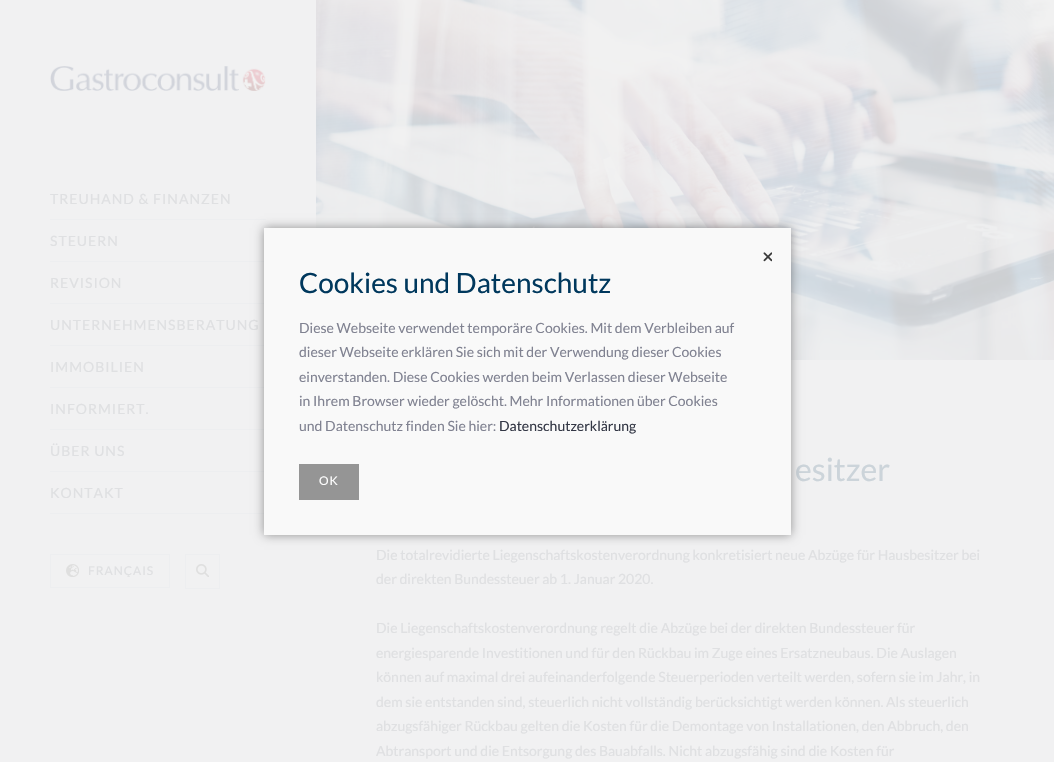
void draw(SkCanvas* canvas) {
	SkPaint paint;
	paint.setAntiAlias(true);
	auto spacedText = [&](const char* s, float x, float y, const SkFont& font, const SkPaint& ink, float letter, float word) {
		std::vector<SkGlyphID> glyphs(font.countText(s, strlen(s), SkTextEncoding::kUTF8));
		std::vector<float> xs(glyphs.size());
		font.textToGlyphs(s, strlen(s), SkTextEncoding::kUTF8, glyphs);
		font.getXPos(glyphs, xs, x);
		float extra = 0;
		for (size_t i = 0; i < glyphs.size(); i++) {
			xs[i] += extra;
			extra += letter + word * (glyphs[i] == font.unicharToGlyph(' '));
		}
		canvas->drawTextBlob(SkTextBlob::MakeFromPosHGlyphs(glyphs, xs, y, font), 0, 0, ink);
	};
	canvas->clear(0xfff1f1f2);
	canvas->drawImageRect(SkImages::DeferredFromEncodedData(SkData::MakeFromFileName("img1.png")), SkRect::MakeXYWH(50, 66, 216, 25), SkSamplingOptions());
	paint.setColor(0xffedeef0);
	canvas->drawRect(SkRect::MakeXYWH(50, 219, 216, 1), paint);
	SkFont f1(fontMgr->matchFamilyStyle("Lato", SkFontStyle::Normal()), 14);
	f1.setSubpixel(true);
	paint.setColor(0xffdfe0e2);
	spacedText("TREUHAND & FINANZEN", 50, 204, f1, paint, 1, 0);
	paint.setColor(0xffedeef0);
	canvas->drawRect(SkRect::MakeXYWH(50, 261, 216, 1), paint);
	paint.setColor(0xffdfe0e2);
	spacedText("STEUERN", 50, 246, f1, paint, 1, 0);
	paint.setColor(0xffedeef0);
	canvas->drawRect(SkRect::MakeXYWH(50, 303, 216, 1), paint);
	paint.setColor(0xffdfe0e2);
	spacedText("REVISION", 50, 288, f1, paint, 1, 0);
	paint.setColor(0xffedeef0);
	canvas->drawRect(SkRect::MakeXYWH(50, 345, 216, 1), paint);
	paint.setColor(0xffdfe0e2);
	spacedText("UNTERNEHMENSBERATUNG", 50, 330, f1, paint, 1, 0);
	paint.setColor(0xffedeef0);
	canvas->drawRect(SkRect::MakeXYWH(50, 387, 216, 1), paint);
	paint.setColor(0xffdfe0e2);
	spacedText("IMMOBILIEN", 50, 372, f1, paint, 1, 0);
	paint.setColor(0xffedeef0);
	canvas->drawRect(SkRect::MakeXYWH(50, 429, 216, 1), paint);
	paint.setColor(0xffdfe0e2);
	spacedText("INFORMIERT.", 50, 414, f1, paint, 1, 0);
	paint.setColor(0xffedeef0);
	canvas->drawRect(SkRect::MakeXYWH(50, 471, 216, 1), paint);
	paint.setColor(0xffdfe0e2);
	spacedText("ÜBER UNS", 50, 456, f1, paint, 1, 0);
	paint.setColor(0xffedeef0);
	canvas->drawRect(SkRect::MakeXYWH(50, 513, 216, 1), paint);
	paint.setColor(0xffdfe0e2);
	spacedText("KONTAKT", 50, 498, f1, paint, 1, 0);
	paint.setStroke(true);
	paint.setStrokeWidth(1);
	paint.setColor(0xffedeef0);
	canvas->drawRect(SkRect::MakeXYWH(50.5, 554.5, 119, 33), paint);
	canvas->drawImageRect(SkImages::DeferredFromEncodedData(SkData::MakeFromFileName("img2.png")), SkRect::MakeXYWH(66, 564, 13, 13), SkSamplingOptions());
	SkFont f2(fontMgr->matchFamilyStyle("Lato", SkFontStyle::Normal()), 12);
	f2.setSubpixel(true);
	paint.setStroke(false);
	paint.setColor(0xffdfe0e2);
	spacedText("FRANÇAIS", 88, 575, f2, paint, 1, 0);
	paint.setStroke(true);
	paint.setColor(0xffedeef0);
	canvas->drawRect(SkRect::MakeXYWH(185.5, 554.5, 34, 34), paint);
	canvas->drawImageRect(SkImages::DeferredFromEncodedData(SkData::MakeFromFileName("img3.png")), SkRect::MakeXYWH(196, 564, 13, 13), SkSamplingOptions());
	canvas->drawImageRect(SkImages::DeferredFromEncodedData(SkData::MakeFromFileName("img4.png")), SkRect::MakeXYWH(316, 0, 738, 360), SkSamplingOptions());
	SkFont f3(fontMgr->matchFamilyStyle("Lato", SkFontStyle::Normal()), 32);
	f3.setSubpixel(true);
	paint.setStroke(false);
	paint.setColor(0xffccd4da);
	canvas->drawString("esitzer", 795, 481, f3, paint);
	paint.setColor(0xffdfe0e2);
	canvas->drawString("Die totalrevidierte Liegenschaftskostenverordnung konkretisiert neue Abzüge für Hausbesitzer bei", 376, 560, f1, paint);
	canvas->drawString("der direkten Bundessteuer ab 1. Januar 2020.", 376, 584, f1, paint);
	canvas->drawString("Die Liegenschaftskostenverordnung regelt die Abzüge bei der direkten Bundessteuer für", 376, 633, f1, paint);
	canvas->drawString("energiesparende Investitionen und für den Rückbau im Zuge eines Ersatzneubaus. Die Auslagen", 376, 658, f1, paint);
	canvas->drawString("können auf maximal drei aufeinanderfolgende Steuerperioden verteilt werden, sofern sie im Jahr, in", 376, 682, f1, paint);
	canvas->drawString("dem sie entstanden sind, steuerlich nicht vollständig berücksichtigt werden können. Als steuerlich", 376, 707, f1, paint);
	canvas->drawString("abzugsfähiger Rückbau gelten die Kosten für die Demontage von Installationen, den Abbruch, den", 376, 731, f1, paint);
	canvas->drawString("Abtransport und die Entsorgung des Bauabfalls. Nicht abzugsfähig sind die Kosten für", 376, 756, f1, paint);
	paint.setColor(0x66000000);
	paint.setMaskFilter(SkMaskFilter::MakeBlur(kNormal_SkBlurStyle, 5));
	canvas->drawRect(SkRect::MakeXYWH(264, 228, 527, 307), paint);
	paint.setMaskFilter(nullptr);
	paint.setColor(0xfff9f9f9);
	canvas->drawRect(SkRect::MakeXYWH(264, 228, 527, 307), paint);
	canvas->drawImageRect(SkImages::DeferredFromEncodedData(SkData::MakeFromFileName("img5.png")), SkRect::MakeXYWH(763, 252, 9, 10), SkSamplingOptions());
	SkFont f4(fontMgr->matchFamilyStyle("Lato", SkFontStyle::Normal()), 28);
	f4.setSubpixel(true);
	paint.setColor(0xff00385d);
	canvas->drawString("Cookies und Datenschutz", 299, 293, f4, paint);
	paint.setColor(0xff808291);
	canvas->drawString("Diese Webseite verwendet temporäre Cookies. Mit dem Verbleiben auf", 299, 333, f1, paint);
	canvas->drawString("dieser Webseite erklären Sie sich mit der Verwendung dieser Cookies", 299, 357, f1, paint);
	canvas->drawString("einverstanden. Diese Cookies werden beim Verlassen dieser Webseite", 299, 382, f1, paint);
	canvas->drawString("in Ihrem Browser wieder gelöscht. Mehr Informationen über Cookies", 299, 406, f1, paint);
	canvas->drawString("und Datenschutz finden Sie hier:", 299, 431, f1, paint);
	paint.setColor(0xff333745);
	canvas->drawString("Datenschutzerklärung", 499, 431, f1, paint);
	paint.setColor(0xff959595);
	canvas->drawRect(SkRect::MakeXYWH(299, 464, 60, 36), paint);
	paint.setColor(0xffffffff);
	spacedText("OK", 319, 485, f2, paint, 1, 0);
}
